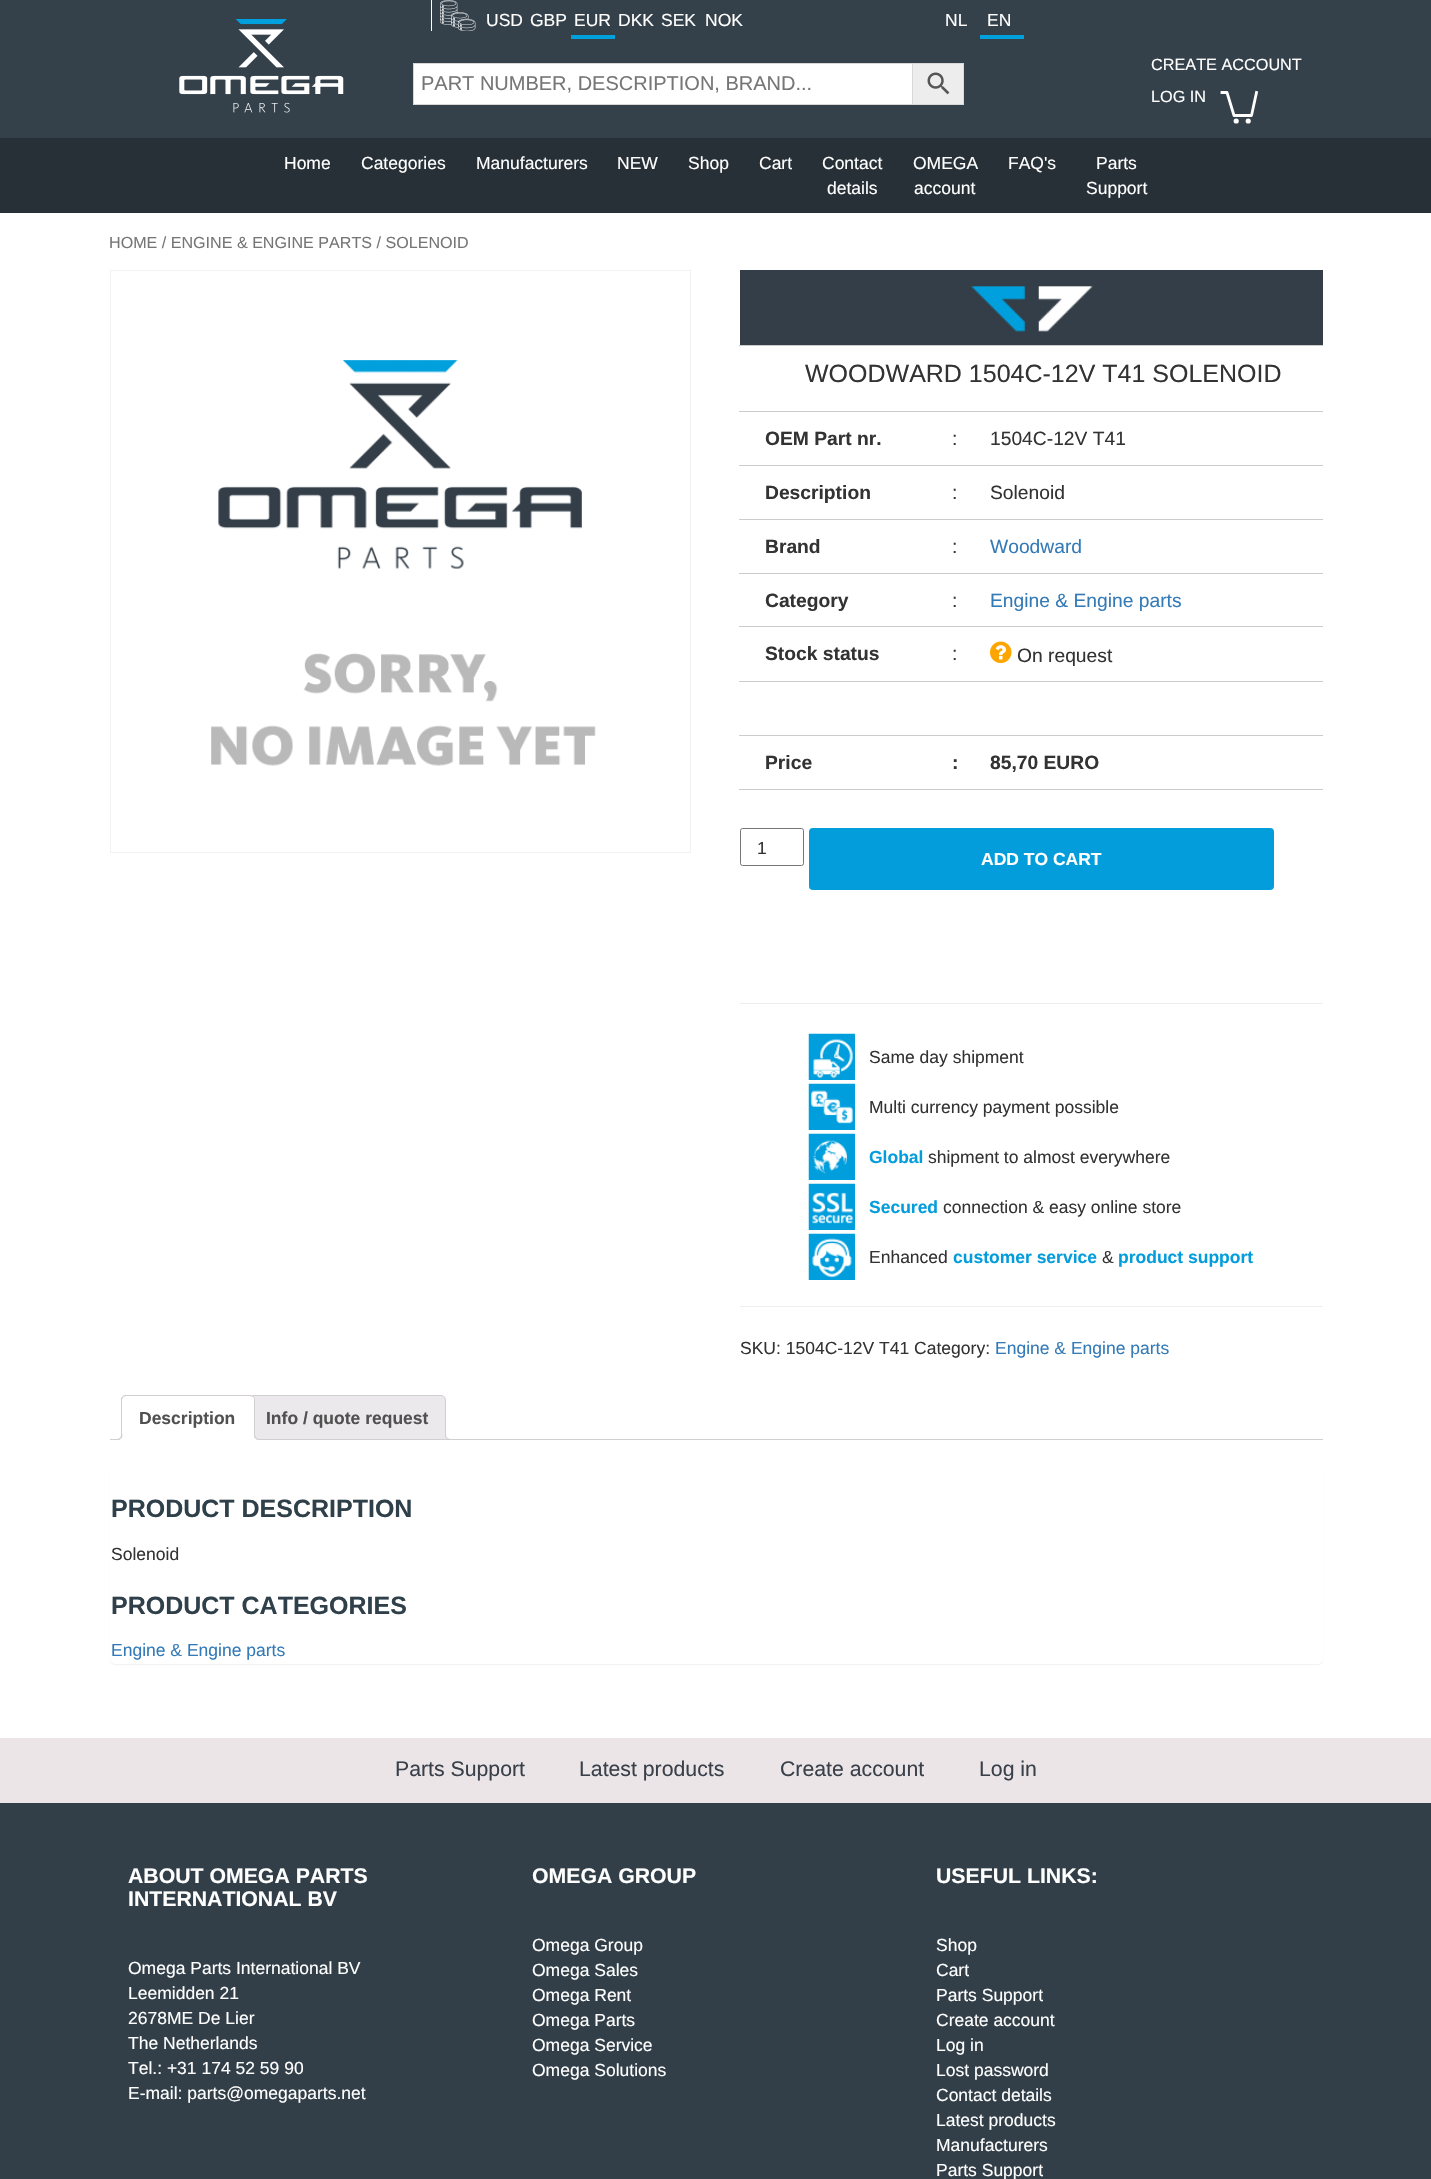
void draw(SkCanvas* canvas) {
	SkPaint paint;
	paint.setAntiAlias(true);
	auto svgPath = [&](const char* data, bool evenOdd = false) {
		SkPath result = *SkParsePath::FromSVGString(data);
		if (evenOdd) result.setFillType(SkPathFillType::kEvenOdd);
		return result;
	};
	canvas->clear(0xffffffff);
	paint.setColor(0xff34414a);
	canvas->drawRect(SkRect::MakeXYWH(0, 0, 1431, 138), paint);
	canvas->drawImageRect(SkImages::DeferredFromEncodedData(SkData::MakeFromFileName("img1.png")), SkRect::MakeXYWH(179, 19, 165, 94), SkSamplingOptions());
	canvas->drawImageRect(SkImages::DeferredFromEncodedData(SkData::MakeFromFileName("img2.png")), SkRect::MakeXYWH(440, 0, 36, 31), SkSamplingOptions());
	paint.setColor(0xffffffff);
	canvas->drawRect(SkRect::MakeXYWH(431, 0, 1, 31), paint);
	SkFont f1(fontMgr->matchFamilyStyle("Liberation Sans", SkFontStyle::Normal()), 17.5);
	f1.setSubpixel(true);
	canvas->drawString("USD", 486, 26, f1, paint);
	canvas->drawString("GBP", 530, 26, f1, paint);
	paint.setColor(0xff00a0dd);
	canvas->drawRect(SkRect::MakeXYWH(571, 35, 44, 4), paint);
	paint.setColor(0xffffffff);
	canvas->drawString("EUR", 574, 26, f1, paint);
	canvas->drawString("DKK", 618, 26, f1, paint);
	canvas->drawString("SEK", 661, 26, f1, paint);
	canvas->drawString("NOK", 705, 26, f1, paint);
	canvas->drawString("NL", 945, 26, f1, paint);
	paint.setColor(0xff00a0dd);
	canvas->drawRect(SkRect::MakeXYWH(980, 35, 44, 4), paint);
	paint.setColor(0xffffffff);
	canvas->drawString("EN", 987, 26, f1, paint);
	SkFont f2(fontMgr->matchFamilyStyle("Liberation Sans", SkFontStyle::Normal()), 16.25);
	f2.setSubpixel(true);
	canvas->drawString("CREATE ACCOUNT", 1151, 70, f2, paint);
	canvas->drawString("LOG IN", 1151, 102, f2, paint);
	paint.setStroke(true);
	paint.setStrokeWidth(2.8);
	paint.setStrokeCap(SkPaint::kSquare_Cap);
	paint.setStrokeJoin(SkPaint::kRound_Join);
	canvas->drawPath(svgPath("M1222 92.5H1227L1234 115.5H1251.5L1256.5 92.5"), paint);
	paint.setStroke(false);
	canvas->drawCircle(1236.2, 121, 2.6, paint);
	canvas->drawCircle(1248.2, 121, 2.6, paint);
	paint.setColor(0xffededed);
	canvas->drawRect(SkRect::MakeXYWH(913, 64, 50, 40), paint);
	paint.setStroke(true);
	paint.setStrokeWidth(1);
	paint.setStrokeCap(SkPaint::kButt_Cap);
	paint.setStrokeJoin(SkPaint::kMiter_Join);
	paint.setColor(0xffd8d8d8);
	canvas->drawRect(SkRect::MakeXYWH(911.5, 63.5, 52, 41), paint);
	paint.setStroke(false);
	paint.setColor(0xffffffff);
	canvas->drawRect(SkRect::MakeXYWH(413.5, 63.5, 499, 41), paint);
	paint.setStroke(true);
	paint.setColor(0xffd8d8d8);
	canvas->drawRect(SkRect::MakeXYWH(413.5, 63.5, 499, 41), paint);
	SkFont f3(fontMgr->matchFamilyStyle("Liberation Sans", SkFontStyle::Normal()), 20);
	f3.setSubpixel(true);
	paint.setStroke(false);
	paint.setColor(0xff767676);
	canvas->drawString("PART NUMBER, DESCRIPTION, BRAND...", 421, 90, f3, paint);
	canvas->drawImageRect(SkImages::DeferredFromEncodedData(SkData::MakeFromFileName("img3.png")), SkRect::MakeXYWH(927, 72, 23, 23), SkSamplingOptions());
	paint.setColor(0xff273037);
	canvas->drawRect(SkRect::MakeXYWH(0, 138, 1431, 75), paint);
	paint.setColor(0xffffffff);
	canvas->drawString("Home", 284, 169, f1, paint);
	canvas->drawString("Categories", 361, 169, f1, paint);
	canvas->drawString("Manufacturers", 476, 169, f1, paint);
	canvas->drawString("NEW", 617, 169, f1, paint);
	canvas->drawString("Shop", 688, 169, f1, paint);
	canvas->drawString("Cart", 759, 169, f1, paint);
	canvas->drawString("Contact", 822, 169, f1, paint);
	canvas->drawString("details", 827, 194, f1, paint);
	canvas->drawString("OMEGA", 913, 169, f1, paint);
	canvas->drawString("account", 914, 194, f1, paint);
	canvas->drawString("FAQ's", 1008, 169, f1, paint);
	canvas->drawString("Parts", 1096, 169, f1, paint);
	canvas->drawString("Support", 1086, 194, f1, paint);
	SkFont f4(fontMgr->matchFamilyStyle("Liberation Sans", SkFontStyle::Normal()), 16.1);
	f4.setSubpixel(true);
	paint.setColor(0xff767676);
	canvas->drawString("HOME / ENGINE & ENGINE PARTS / SOLENOID", 109, 248, f4, paint);
	paint.setStroke(true);
	paint.setColor(0xfff2f2f2);
	canvas->drawRect(SkRect::MakeXYWH(110.5, 270.5, 580, 582), paint);
	canvas->drawImageRect(SkImages::DeferredFromEncodedData(SkData::MakeFromFileName("img4.png")), SkRect::MakeXYWH(211, 360, 385, 406), SkSamplingOptions());
	paint.setStroke(false);
	paint.setColor(0xff333e48);
	canvas->drawRect(SkRect::MakeXYWH(740, 270, 583, 75), paint);
	canvas->drawImageRect(SkImages::DeferredFromEncodedData(SkData::MakeFromFileName("img5.png")), SkRect::MakeXYWH(971, 286, 55, 46), SkSamplingOptions());
	canvas->drawImageRect(SkImages::DeferredFromEncodedData(SkData::MakeFromFileName("img6.png")), SkRect::MakeXYWH(1038, 286, 55, 46), SkSamplingOptions());
	paint.setColor(0xffcccccc);
	canvas->drawRect(SkRect::MakeXYWH(739, 345, 584, 1), paint);
	SkFont f5(fontMgr->matchFamilyStyle("Liberation Sans", SkFontStyle::Normal()), 25);
	f5.setSubpixel(true);
	paint.setColor(0xff333333);
	canvas->drawString("WOODWARD 1504C-12V T41 SOLENOID", 805, 382, f5, paint);
	SkFont f6(fontMgr->matchFamilyStyle("Liberation Sans", SkFontStyle::Bold()), 19.25);
	f6.setSubpixel(true);
	canvas->drawString("OEM Part nr.", 765, 445, f6, paint);
	SkFont f7(fontMgr->matchFamilyStyle("Liberation Sans", SkFontStyle::Normal()), 19.25);
	f7.setSubpixel(true);
	canvas->drawString(":", 952, 445, f7, paint);
	paint.setColor(0xffcccccc);
	canvas->drawRect(SkRect::MakeXYWH(739, 411, 584, 1), paint);
	paint.setColor(0xff333333);
	canvas->drawString("1504C-12V T41", 990, 445, f7, paint);
	canvas->drawString("Description", 765, 499, f6, paint);
	canvas->drawString(":", 952, 499, f7, paint);
	paint.setColor(0xffcccccc);
	canvas->drawRect(SkRect::MakeXYWH(739, 465, 584, 1), paint);
	paint.setColor(0xff333333);
	canvas->drawString("Solenoid", 990, 499, f7, paint);
	canvas->drawString("Brand", 765, 553, f6, paint);
	canvas->drawString(":", 952, 553, f7, paint);
	paint.setColor(0xffcccccc);
	canvas->drawRect(SkRect::MakeXYWH(739, 519, 584, 1), paint);
	paint.setColor(0xff337ab7);
	canvas->drawString("Woodward", 990, 553, f7, paint);
	paint.setColor(0xff333333);
	canvas->drawString("Category", 765, 607, f6, paint);
	canvas->drawString(":", 952, 607, f7, paint);
	paint.setColor(0xffcccccc);
	canvas->drawRect(SkRect::MakeXYWH(739, 573, 584, 1), paint);
	paint.setColor(0xff337ab7);
	canvas->drawString("Engine & Engine parts", 990, 607, f7, paint);
	paint.setColor(0xff333333);
	canvas->drawString("Stock status", 765, 660, f6, paint);
	canvas->drawString(":", 952, 660, f7, paint);
	paint.setColor(0xffcccccc);
	canvas->drawRect(SkRect::MakeXYWH(739, 626, 584, 1), paint);
	canvas->drawImageRect(SkImages::DeferredFromEncodedData(SkData::MakeFromFileName("img7.png")), SkRect::MakeXYWH(990, 641, 22, 22), SkSamplingOptions());
	paint.setColor(0xff333333);
	canvas->drawString("On request", 1017, 662, f7, paint);
	paint.setColor(0xffcccccc);
	canvas->drawRect(SkRect::MakeXYWH(739, 681, 584, 1), paint);
	paint.setColor(0xff333333);
	canvas->drawString("Price", 765, 769, f6, paint);
	canvas->drawString(":", 952, 769, f6, paint);
	paint.setColor(0xffcccccc);
	canvas->drawRect(SkRect::MakeXYWH(739, 735, 584, 1), paint);
	canvas->drawRect(SkRect::MakeXYWH(739, 789, 584, 1), paint);
	paint.setColor(0xff333333);
	canvas->drawString("85,70 EURO", 990, 769, f6, paint);
	paint.setStroke(true);
	paint.setColor(0xff767676);
	canvas->drawRoundRect(SkRect::MakeXYWH(740.5, 828.5, 63, 37), 2, 2, paint);
	paint.setStroke(false);
	paint.setColor(0xff333333);
	canvas->drawString("1", 757, 854, f1, paint);
	paint.setColor(0xff039ddb);
	canvas->drawRoundRect(SkRect::MakeXYWH(809, 828, 465, 62), 4, 4, paint);
	SkFont f8(fontMgr->matchFamilyStyle("Liberation Sans", SkFontStyle::Bold()), 17.5);
	f8.setSubpixel(true);
	paint.setColor(0xffffffff);
	canvas->drawString("ADD TO CART", 981, 865, f8, paint);
	paint.setColor(0xffeeeeee);
	canvas->drawRect(SkRect::MakeXYWH(740, 1003, 583, 1), paint);
	canvas->drawImageRect(SkImages::DeferredFromEncodedData(SkData::MakeFromFileName("img8.png")), SkRect::MakeXYWH(808, 1033, 47, 47), SkSamplingOptions());
	paint.setColor(0xff333333);
	canvas->drawString("Same day shipment", 869, 1063, f1, paint);
	canvas->drawImageRect(SkImages::DeferredFromEncodedData(SkData::MakeFromFileName("img9.png")), SkRect::MakeXYWH(808, 1083, 47, 47), SkSamplingOptions());
	canvas->drawString("Multi currency payment possible", 869, 1113, f1, paint);
	canvas->drawImageRect(SkImages::DeferredFromEncodedData(SkData::MakeFromFileName("img10.png")), SkRect::MakeXYWH(808, 1133, 47, 47), SkSamplingOptions());
	paint.setColor(0xff039ddb);
	canvas->drawString("Global", 869, 1163, f8, paint);
	paint.setColor(0xff333333);
	canvas->drawString("shipment to almost everywhere", 928, 1163, f1, paint);
	canvas->drawImageRect(SkImages::DeferredFromEncodedData(SkData::MakeFromFileName("img11.png")), SkRect::MakeXYWH(808, 1183, 47, 47), SkSamplingOptions());
	paint.setColor(0xff039ddb);
	canvas->drawString("Secured", 869, 1213, f8, paint);
	paint.setColor(0xff333333);
	canvas->drawString("connection & easy online store", 943, 1213, f1, paint);
	canvas->drawImageRect(SkImages::DeferredFromEncodedData(SkData::MakeFromFileName("img12.png")), SkRect::MakeXYWH(808, 1233, 47, 47), SkSamplingOptions());
	canvas->drawString("Enhanced", 869, 1263, f1, paint);
	paint.setColor(0xff039ddb);
	canvas->drawString("customer service", 953, 1263, f8, paint);
	paint.setColor(0xff333333);
	canvas->drawString("&", 1102, 1263, f1, paint);
	paint.setColor(0xff039ddb);
	canvas->drawString("product support", 1118, 1263, f8, paint);
	paint.setColor(0xffeeeeee);
	canvas->drawRect(SkRect::MakeXYWH(740, 1306, 583, 1), paint);
	paint.setColor(0xff333333);
	canvas->drawString("SKU: 1504C-12V T41 Category:", 740, 1354, f1, paint);
	paint.setColor(0xff337ab7);
	canvas->drawString("Engine & Engine parts", 995, 1354, f1, paint);
	paint.setColor(0xffebe9eb);
	canvas->drawPath(svgPath("M251 1395.5H441C443.5 1395.5 445.5 1397.5 445.5 1400V1439.5H246.5V1400C246.5 1397.5 248.5 1395.5 251 1395.5Z"), paint);
	paint.setStroke(true);
	paint.setColor(0xffd3ced2);
	canvas->drawPath(svgPath("M251 1395.5H441C443.5 1395.5 445.5 1397.5 445.5 1400V1439.5H246.5V1400C246.5 1397.5 248.5 1395.5 251 1395.5Z"), paint);
	canvas->save();
	canvas->clipRect(SkRect::MakeXYWH(110, 1395, 1213, 45));
	paint.setStroke(false);
	paint.setColor(0xffebe9eb);
	canvas->drawPath(svgPath("M443 1436C443 1440.5 444 1443 449 1443V1440C447 1439.5 445.5 1438 445 1436Z"), paint);
	canvas->restore();
	paint.setColor(0xffd3ced2);
	canvas->drawPath(svgPath("M445 1434H451V1440C448 1440 445 1438.5 445 1435ZM446 1434H451V1439C449 1439 446 1438 446 1435Z", true), paint);
	canvas->drawRect(SkRect::MakeXYWH(110, 1439, 1213, 1), paint);
	paint.setColor(0xffffffff);
	canvas->drawPath(svgPath("M126 1395H250C253 1395 255 1397 255 1400V1440H121V1400C121 1397 123 1395 126 1395Z"), paint);
	paint.setColor(0xffd3ced2);
	canvas->drawPath(svgPath("M126 1395C125 1395 123 1395 123 1396V1397L126 1396H250L253 1397L254 1396C253 1396 252 1395 250 1395Z"), paint);
	canvas->drawPath(svgPath("M255 1440V1400C255 1398 254 1397 254 1396L253 1397C254 1398 254 1399 254 1400V1439Z"), paint);
	paint.setColor(0xffffffff);
	canvas->drawPath(svgPath("M255 1440L254 1439H122L121 1440Z"), paint);
	paint.setColor(0xffd3ced2);
	canvas->drawPath(svgPath("M121 1440V1398L123 1396V1397C123 1398 122 1399 122 1400V1439Z"), paint);
	paint.setColor(0xff515151);
	canvas->drawString("Description", 139, 1424, f8, paint);
	canvas->save();
	canvas->clipRect(SkRect::MakeXYWH(110, 1395, 1213, 45));
	paint.setColor(0xffffffff);
	canvas->drawPath(svgPath("M119 1440V1443C124 1443 125 1440.5 125 1436H122.5C122 1438 120.5 1439 119 1440Z"), paint);
	canvas->restore();
	paint.setColor(0xffd3ced2);
	canvas->drawPath(svgPath("M116 1434H122.5C122.5 1438 120.5 1440 116 1440ZM116 1434H121C121 1437.5 120 1439 116 1439Z", true), paint);
	canvas->save();
	canvas->clipRect(SkRect::MakeXYWH(110, 1395, 1213, 45));
	paint.setColor(0xffffffff);
	canvas->drawPath(svgPath("M251 1436C251 1441.5 252.5 1443 258 1443V1440C256 1439.5 254.5 1438 254 1436Z"), paint);
	canvas->restore();
	paint.setColor(0xffd3ced2);
	canvas->drawPath(svgPath("M254 1434H260V1440C257 1440 254 1438.5 254 1435ZM255 1434H260V1439C257.5 1439 255 1438 255 1435Z", true), paint);
	paint.setColor(0xff515151);
	canvas->drawString("Info / quote request", 266, 1424, f8, paint);
	paint.setColor(0x0d000000);
	paint.setMaskFilter(SkMaskFilter::MakeBlur(kNormal_SkBlurStyle, 0.5));
	canvas->drawRoundRect(SkRect::MakeXYWH(110, 1470, 1213, 195), 5, 5, paint);
	paint.setMaskFilter(nullptr);
	paint.setColor(0xffffffff);
	canvas->drawRoundRect(SkRect::MakeXYWH(110, 1469, 1213, 195), 5, 5, paint);
	SkFont f9(fontMgr->matchFamilyStyle("Liberation Sans", SkFontStyle::Bold()), 25);
	f9.setSubpixel(true);
	paint.setColor(0xff2f404a);
	canvas->drawString("PRODUCT DESCRIPTION", 111, 1517, f9, paint);
	paint.setColor(0xff333333);
	canvas->drawString("Solenoid", 111, 1560, f1, paint);
	paint.setColor(0xff2f404a);
	canvas->drawString("PRODUCT CATEGORIES", 111, 1614, f9, paint);
	paint.setColor(0xff337ab7);
	canvas->drawString("Engine & Engine parts", 111, 1656, f1, paint);
	paint.setColor(0xffebe5e7);
	canvas->drawRect(SkRect::MakeXYWH(0, 1738, 1431, 65), paint);
	SkFont f10(fontMgr->matchFamilyStyle("Liberation Sans", SkFontStyle::Normal()), 21.25);
	f10.setSubpixel(true);
	paint.setColor(0xff39404a);
	canvas->drawString("Parts Support", 395, 1776, f10, paint);
	canvas->drawString("Latest products", 579, 1776, f10, paint);
	canvas->drawString("Create account", 780, 1776, f10, paint);
	canvas->drawString("Log in", 979, 1776, f10, paint);
	paint.setColor(0xff323f48);
	canvas->drawRect(SkRect::MakeXYWH(0, 1803, 1431, 376), paint);
	SkFont f11(fontMgr->matchFamilyStyle("Liberation Sans", SkFontStyle::Bold()), 21.25);
	f11.setSubpixel(true);
	paint.setColor(0xffffffff);
	canvas->drawString("ABOUT OMEGA PARTS", 128, 1883, f11, paint);
	canvas->drawString("INTERNATIONAL BV", 128, 1906, f11, paint);
	canvas->drawString("Omega Parts International BV", 128, 1974, f1, paint);
	canvas->drawString("Leemidden 21", 128, 1999, f1, paint);
	canvas->drawString("2678ME De Lier", 128, 2024, f1, paint);
	canvas->drawString("The Netherlands", 128, 2049, f1, paint);
	canvas->drawString("Tel.: +31 174 52 59 90", 128, 2074, f1, paint);
	canvas->drawString("E-mail: parts@omegaparts.net", 128, 2099, f1, paint);
	canvas->drawString("OMEGA GROUP", 532, 1883, f11, paint);
	canvas->drawString("Omega Group", 532, 1951, f1, paint);
	canvas->drawString("Omega Sales", 532, 1976, f1, paint);
	canvas->drawString("Omega Rent", 532, 2001, f1, paint);
	canvas->drawString("Omega Parts", 532, 2026, f1, paint);
	canvas->drawString("Omega Service", 532, 2051, f1, paint);
	canvas->drawString("Omega Solutions", 532, 2076, f1, paint);
	canvas->drawString("USEFUL LINKS:", 936, 1883, f11, paint);
	canvas->drawString("Shop", 936, 1951, f1, paint);
	canvas->drawString("Cart", 936, 1976, f1, paint);
	canvas->drawString("Parts Support", 936, 2001, f1, paint);
	canvas->drawString("Create account", 936, 2026, f1, paint);
	canvas->drawString("Log in", 936, 2051, f1, paint);
	canvas->drawString("Lost password", 936, 2076, f1, paint);
	canvas->drawString("Contact details", 936, 2101, f1, paint);
	canvas->drawString("Latest products", 936, 2126, f1, paint);
	canvas->drawString("Manufacturers", 936, 2151, f1, paint);
	canvas->drawString("Parts Support", 936, 2176, f1, paint);
}
